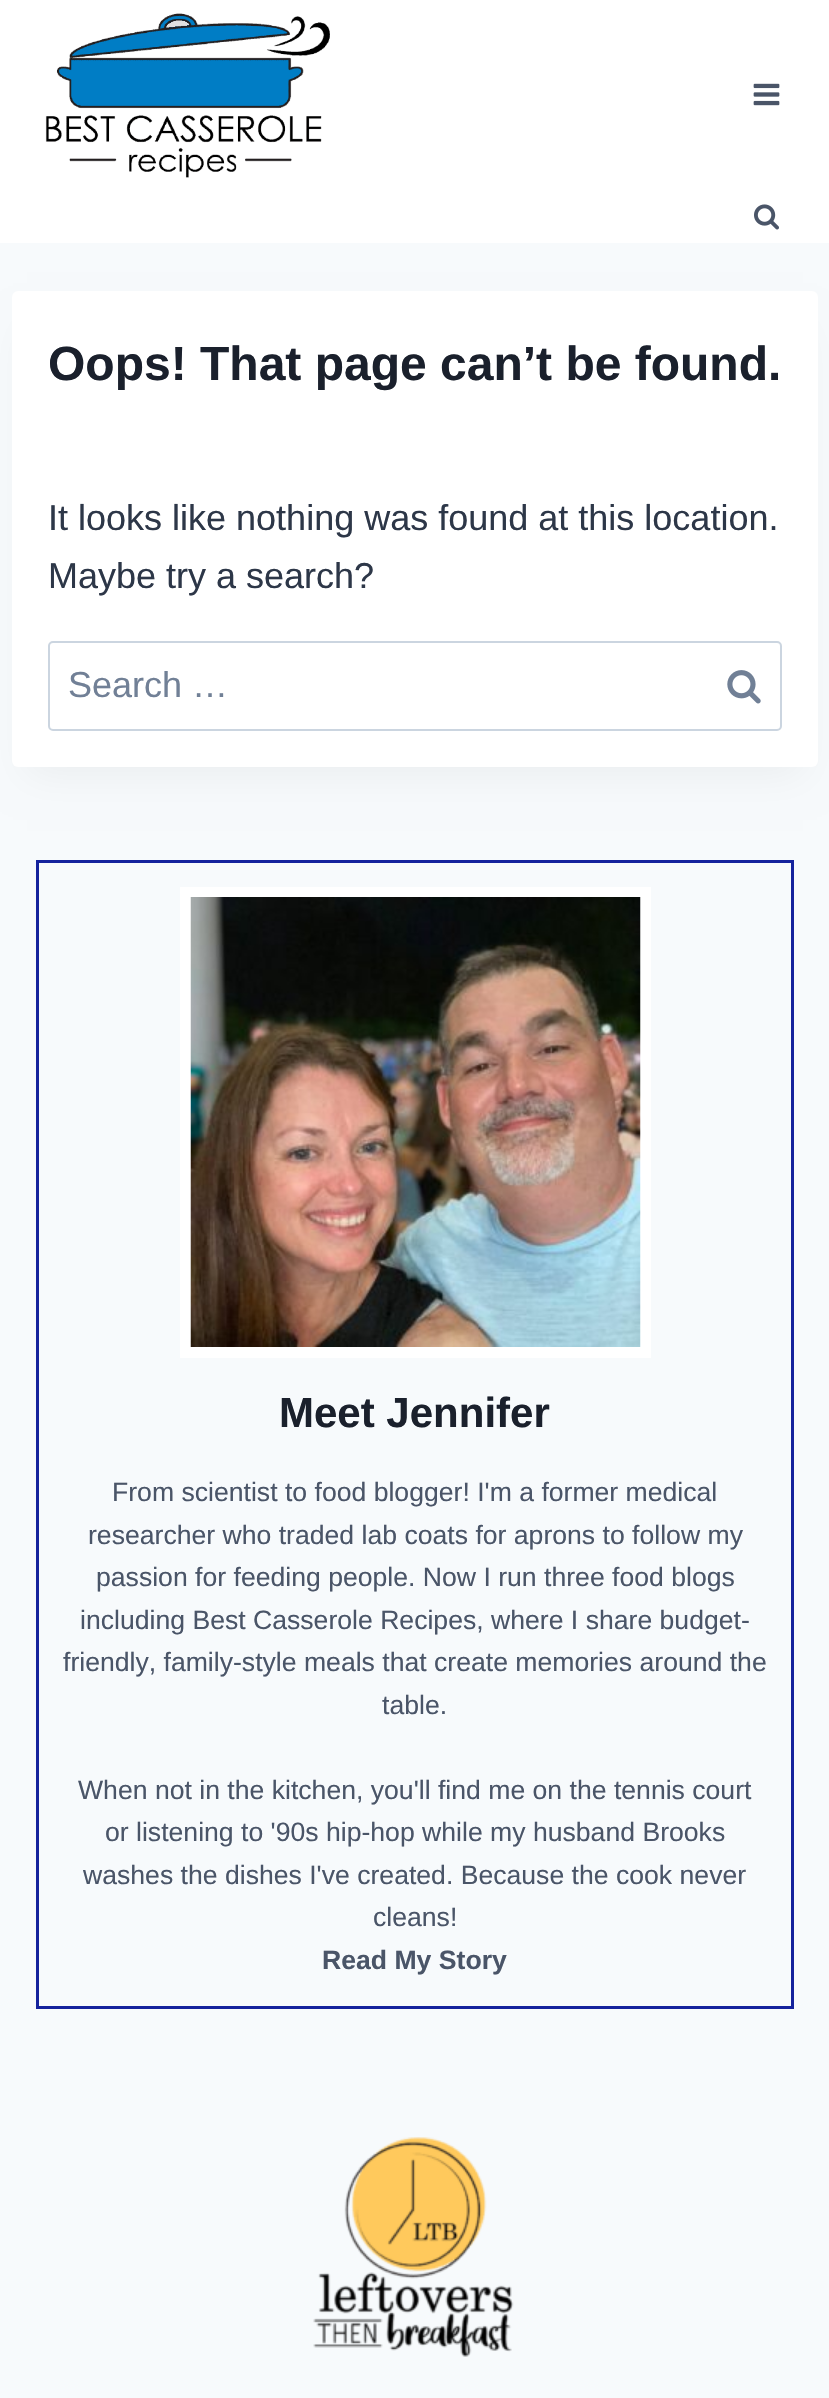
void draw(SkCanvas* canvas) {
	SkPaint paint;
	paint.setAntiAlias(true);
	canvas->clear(0xfff7fafc);
	paint.setColor(0xffffffff);
	canvas->drawRect(SkRect::MakeXYWH(0, 0, 829, 243), paint);
	canvas->drawImageRect(SkImages::DeferredFromEncodedData(SkData::MakeFromFileName("img1.png")), SkRect::MakeXYWH(45, 13, 285, 165), SkSamplingOptions());
	canvas->drawImageRect(SkImages::DeferredFromEncodedData(SkData::MakeFromFileName("img2.png")), SkRect::MakeXYWH(753, 83, 27, 23), SkSamplingOptions());
	canvas->drawImageRect(SkImages::DeferredFromEncodedData(SkData::MakeFromFileName("img3.png")), SkRect::MakeXYWH(754, 204, 25, 26), SkSamplingOptions());
	paint.setColor(0x0d000000);
	paint.setMaskFilter(SkMaskFilter::MakeBlur(kNormal_SkBlurStyle, 19));
	canvas->drawRect(SkRect::MakeXYWH(27, 329, 776, 445), paint);
	paint.setMaskFilter(nullptr);
	paint.setColor(0xffffffff);
	canvas->drawRoundRect(SkRect::MakeXYWH(12, 291, 806, 476), 6, 6, paint);
	SkFont f1(fontMgr->matchFamilyStyle("Liberation Sans", SkFontStyle::Bold()), 48);
	f1.setSubpixel(true);
	paint.setColor(0xff1a202c);
	canvas->drawString("Oops! That page can’t be found.", 48, 380, f1, paint);
	SkFont f2(fontMgr->matchFamilyStyle("Liberation Sans", SkFontStyle::Normal()), 36);
	f2.setSubpixel(true);
	paint.setColor(0xff2d3748);
	canvas->drawString("It looks like nothing was found at this location.", 48, 530, f2, paint);
	canvas->drawString("Maybe try a search?", 48, 588, f2, paint);
	paint.setStroke(true);
	paint.setStrokeWidth(2);
	paint.setColor(0xffcbd5e0);
	canvas->drawRoundRect(SkRect::MakeXYWH(49, 642, 732, 88), 4, 4, paint);
	paint.setStroke(false);
	paint.setColor(0xff718096);
	canvas->drawString("Search …", 68, 697, f2, paint);
	canvas->drawImageRect(SkImages::DeferredFromEncodedData(SkData::MakeFromFileName("img4.png")), SkRect::MakeXYWH(727, 670, 34, 34), SkSamplingOptions());
	paint.setStroke(true);
	paint.setStrokeWidth(3);
	paint.setColor(0xff15239d);
	canvas->drawRect(SkRect::MakeXYWH(37.5, 861.5, 755, 1146), paint);
	paint.setStrokeWidth(11);
	paint.setColor(0xffffffff);
	canvas->drawRect(SkRect::MakeXYWH(185.5, 892.5, 460, 460), paint);
	canvas->drawImageRect(SkImages::DeferredFromEncodedData(SkData::MakeFromFileName("img5.png")), SkRect::MakeXYWH(190, 897, 451, 450), SkSamplingOptions());
	SkFont f3(fontMgr->matchFamilyStyle("Liberation Sans", SkFontStyle::Bold()), 42);
	f3.setSubpixel(true);
	paint.setStroke(false);
	paint.setColor(0xff1a202c);
	canvas->drawString("Meet Jennifer", 279, 1427, f3, paint);
	SkFont f4(fontMgr->matchFamilyStyle("Liberation Sans", SkFontStyle::Normal()), 26.6);
	f4.setSubpixel(true);
	paint.setColor(0xff4a5568);
	canvas->drawString("From scientist to food blogger! I'm a former medical", 112, 1501, f4, paint);
	canvas->drawString("researcher who traded lab coats for aprons to follow my", 88, 1544, f4, paint);
	canvas->drawString("passion for feeding people. Now I run three food blogs", 96, 1586, f4, paint);
	canvas->drawString("including Best Casserole Recipes, where I share budget-", 80, 1629, f4, paint);
	canvas->drawString("friendly, family-style meals that create memories around the", 63, 1671, f4, paint);
	canvas->drawString("table.", 382, 1714, f4, paint);
	canvas->drawString("When not in the kitchen, you'll find me on the tennis court", 78, 1799, f4, paint);
	canvas->drawString("or listening to '90s hip-hop while my husband Brooks", 105, 1841, f4, paint);
	canvas->drawString("washes the dishes I've created. Because the cook never", 83, 1884, f4, paint);
	canvas->drawString("cleans!", 373, 1926, f4, paint);
	SkFont f5(fontMgr->matchFamilyStyle("Liberation Sans", SkFontStyle::Bold()), 26.6);
	f5.setSubpixel(true);
	canvas->drawString("Read My Story", 322, 1969, f5, paint);
	canvas->drawImageRect(SkImages::DeferredFromEncodedData(SkData::MakeFromFileName("img6.png")), SkRect::MakeXYWH(313, 2137, 201, 220), SkSamplingOptions());
}
